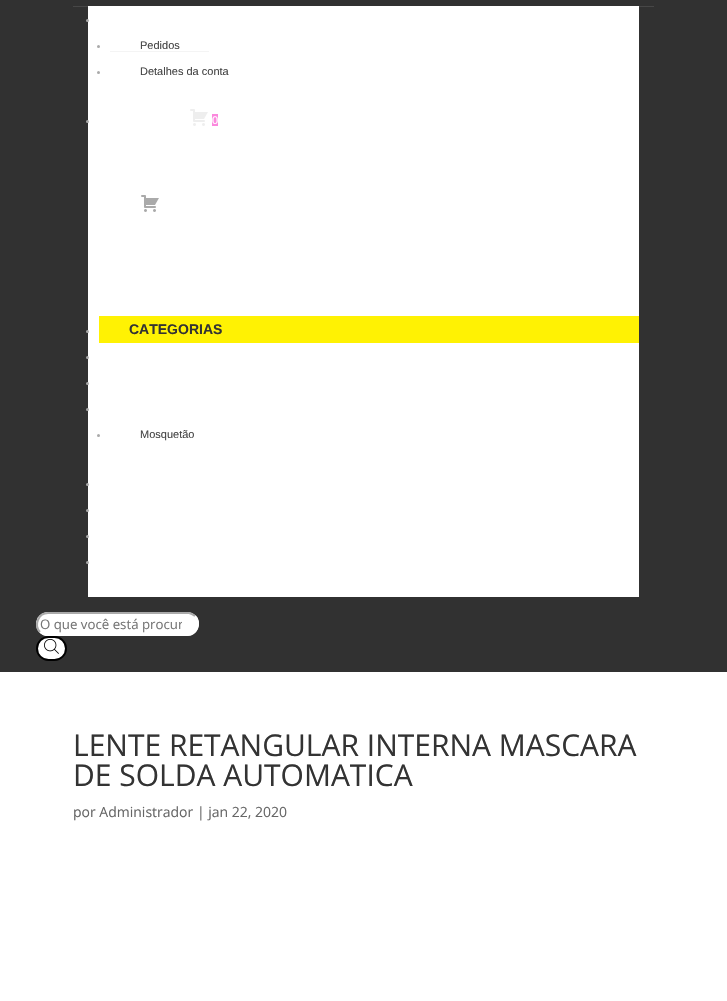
void draw(SkCanvas* canvas) {
	SkPaint paint;
	paint.setAntiAlias(true);
	auto svgPath = [&](const char* data, bool evenOdd = false) {
		SkPath result = *SkParsePath::FromSVGString(data);
		if (evenOdd) result.setFillType(SkPathFillType::kEvenOdd);
		return result;
	};
	canvas->clear(0xffffffff);
	paint.setColor(0xff313131);
	canvas->drawRect(SkRect::MakeXYWH(0, 0, 727, 672), paint);
	paint.setColor(0xff474747);
	canvas->drawRect(SkRect::MakeXYWH(73, 6, 581, 1), paint);
	paint.setColor(0xffffffff);
	canvas->drawRect(SkRect::MakeXYWH(88, 6, 551, 591), paint);
	paint.setColor(0xffaaaaaa);
	canvas->drawCircle(87.5, 20.5, 1.5, paint);
	canvas->drawCircle(98.5, 46.5, 1.5, paint);
	SkFont f1(fontMgr->matchFamilyStyle("Liberation Sans", SkFontStyle::Normal()), 11);
	f1.setSubpixel(true);
	paint.setColor(0xff444444);
	canvas->drawString("Pedidos", 140, 49, f1, paint);
	paint.setColor(0xfff4f4f4);
	canvas->drawRect(SkRect::MakeXYWH(110, 51, 99, 1), paint);
	paint.setColor(0xffaaaaaa);
	canvas->drawCircle(98.5, 72.5, 1.5, paint);
	paint.setColor(0xff444444);
	canvas->drawString("Detalhes da conta", 140, 75, f1, paint);
	paint.setColor(0xffaaaaaa);
	canvas->drawCircle(87.5, 121.5, 1.5, paint);
	canvas->drawImageRect(SkImages::DeferredFromEncodedData(SkData::MakeFromFileName("img1.png")), SkRect::MakeXYWH(190, 109, 18, 17), SkSamplingOptions());
	paint.setColor(0xfffb88dd);
	canvas->drawRect(SkRect::MakeXYWH(212, 114, 6, 12), paint);
	paint.setColor(0xffffffff);
	canvas->drawString("0", 212, 124, f1, paint);
	canvas->drawImageRect(SkImages::DeferredFromEncodedData(SkData::MakeFromFileName("img2.png")), SkRect::MakeXYWH(141, 195, 18, 17), SkSamplingOptions());
	paint.setColor(0xfffff203);
	canvas->drawRect(SkRect::MakeXYWH(99, 316, 540, 27), paint);
	paint.setColor(0xffaaaaaa);
	canvas->drawCircle(87.5, 331.5, 1.5, paint);
	SkFont f2(fontMgr->matchFamilyStyle("Liberation Sans", SkFontStyle::Bold()), 14);
	f2.setSubpixel(true);
	paint.setColor(0xff333333);
	canvas->drawString("CATEGORIAS", 129, 334, f2, paint);
	paint.setColor(0xffaaaaaa);
	canvas->drawCircle(87.5, 357.5, 1.5, paint);
	canvas->drawCircle(87.5, 383.5, 1.5, paint);
	canvas->drawCircle(87.5, 409.5, 1.5, paint);
	canvas->drawCircle(98.5, 435.5, 1.5, paint);
	paint.setColor(0xff444444);
	canvas->drawString("Mosquetão", 140, 438, f1, paint);
	paint.setColor(0xffaaaaaa);
	canvas->drawCircle(87.5, 484.5, 1.5, paint);
	canvas->drawCircle(87.5, 510.5, 1.5, paint);
	canvas->drawCircle(87.5, 536.5, 1.5, paint);
	canvas->drawCircle(87.5, 562.5, 1.5, paint);
	paint.setColor(0xffffffff);
	canvas->drawRoundRect(SkRect::MakeXYWH(36, 612, 163, 24), 12, 12, paint);
	paint.setStroke(true);
	paint.setStrokeWidth(2);
	canvas->drawPath(svgPath("M195 616C201.5 623 196.5 635 187 635H46C43.5 634.5 42 633.5 40 632"), paint);
	paint.setColor(0xffaaaaaa);
	canvas->drawPath(svgPath("M40 632C33.5 625 38.5 613 48 613H189C191.5 613.5 193 614.5 195 616"), paint);
	canvas->save();
	canvas->clipRect(SkRect::MakeXYWH(40, 615, 142, 18));
	SkFont f3(fontMgr->matchFamilyStyle("Open Sans", SkFontStyle::Normal()), 13.25);
	f3.setSubpixel(true);
	paint.setStroke(false);
	paint.setColor(0xff757575);
	canvas->drawString("O que você está procur", 40, 629, f3, paint);
	canvas->restore();
	paint.setColor(0xffffffff);
	canvas->drawRoundRect(SkRect::MakeXYWH(37, 637, 29, 23), 11.5, 11.5, paint);
	paint.setStroke(true);
	paint.setColor(0xff000000);
	canvas->drawRoundRect(SkRect::MakeXYWH(37, 637, 29, 23), 11.5, 11.5, paint);
	canvas->drawImageRect(SkImages::DeferredFromEncodedData(SkData::MakeFromFileName("img3.png")), SkRect::MakeXYWH(44, 639, 15, 15), SkSamplingOptions());
	SkFont f4(fontMgr->matchFamilyStyle("Open Sans", SkFontStyle::Normal()), 30);
	f4.setSubpixel(true);
	paint.setStroke(false);
	paint.setColor(0xff333333);
	canvas->drawString("LENTE RETANGULAR INTERNA MASCARA", 73, 756, f4, paint);
	canvas->drawString("DE SOLDA AUTOMATICA", 73, 786, f4, paint);
	SkFont f5(fontMgr->matchFamilyStyle("Open Sans", SkFontStyle::Normal()), 14);
	f5.setSubpixel(true);
	paint.setColor(0xff666666);
	canvas->drawString("por Administrador | jan 22, 2020", 73, 817, f5, paint);
}
